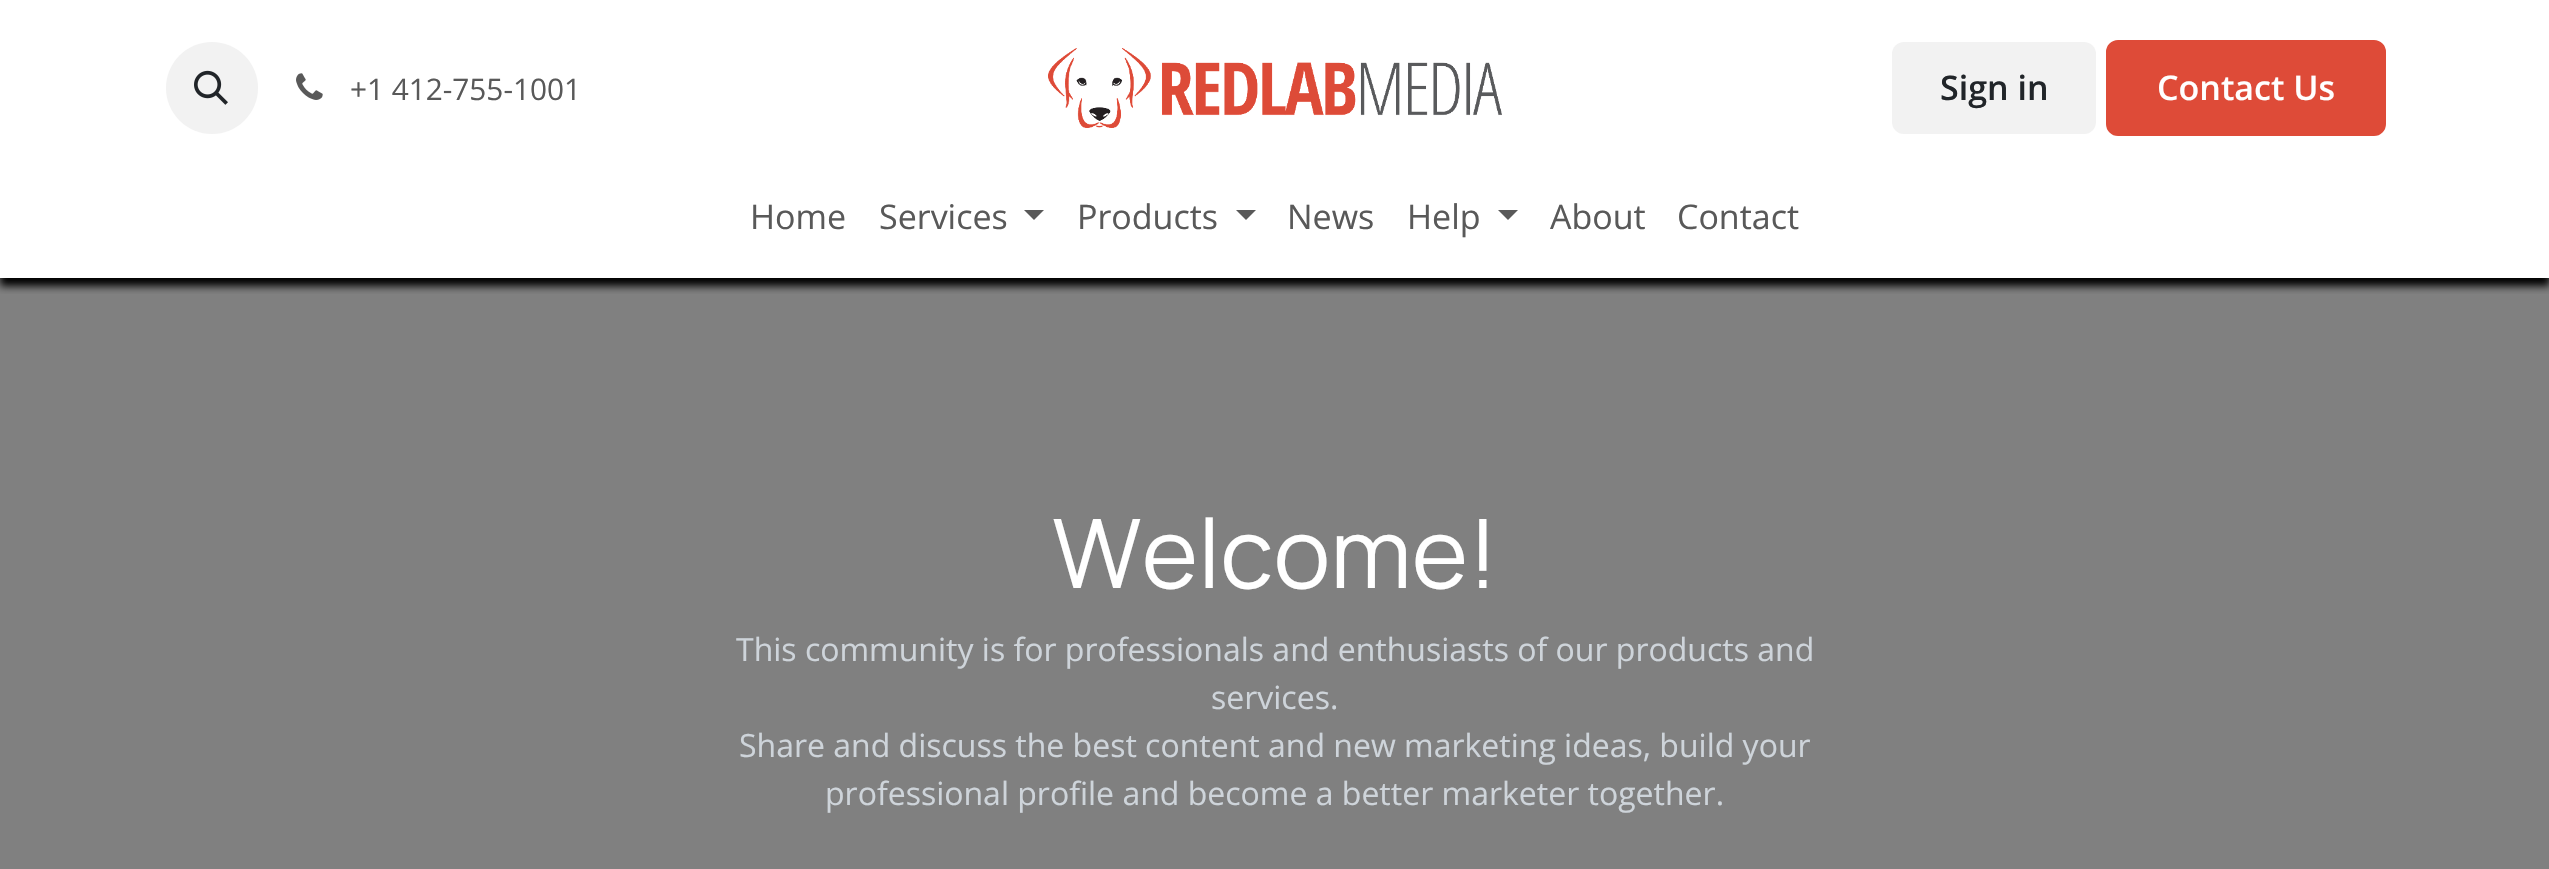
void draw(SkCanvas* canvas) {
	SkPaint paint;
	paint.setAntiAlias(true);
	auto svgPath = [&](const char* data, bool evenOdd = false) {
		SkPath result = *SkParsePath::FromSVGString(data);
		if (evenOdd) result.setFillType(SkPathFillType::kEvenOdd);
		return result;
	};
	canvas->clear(0xffffffff);
	paint.setColor(0xff808080);
	canvas->drawRect(SkRect::MakeXYWH(0, 278, 2549, 591), paint);
	canvas->save();
	canvas->clipRect(SkRect::MakeXYWH(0, 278, 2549, 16));
	paint.setColor(0xff000000);
	paint.setMaskFilter(SkMaskFilter::MakeBlur(kNormal_SkBlurStyle, 4));
	canvas->drawRect(SkRect::MakeXYWH(0, 8, 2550, 278), paint);
	paint.setMaskFilter(nullptr);
	canvas->restore();
	paint.setColor(0xfff2f2f2);
	canvas->drawCircle(212, 88, 46, paint);
	canvas->drawImageRect(SkImages::DeferredFromEncodedData(SkData::MakeFromFileName("img1.png")), SkRect::MakeXYWH(194, 70, 34, 35), SkSamplingOptions());
	canvas->drawImageRect(SkImages::DeferredFromEncodedData(SkData::MakeFromFileName("img2.png")), SkRect::MakeXYWH(296, 73, 27, 27), SkSamplingOptions());
	SkFont f1(fontMgr->matchFamilyStyle("Open Sans", SkFontStyle::Normal()), 29.75);
	f1.setSubpixel(true);
	paint.setColor(0xff595959);
	canvas->drawString("+1 412-755-1001", 350, 100, f1, paint);
	canvas->drawImageRect(SkImages::DeferredFromEncodedData(SkData::MakeFromFileName("img3.png")), SkRect::MakeXYWH(1048, 48, 454, 80), SkSamplingOptions());
	paint.setColor(0xfff2f2f2);
	canvas->drawRoundRect(SkRect::MakeXYWH(1892, 42, 204, 92), 12, 12, paint);
	SkFont f2(fontMgr->matchFamilyStyle("Open Sans", SkFontStyle(600, SkFontStyle::kNormal_Width, SkFontStyle::kUpright_Slant)), 34);
	f2.setSubpixel(true);
	paint.setColor(0xff212529);
	canvas->drawString("Sign in", 1940, 100, f2, paint);
	paint.setColor(0xffde4b38);
	canvas->drawRoundRect(SkRect::MakeXYWH(2107, 41, 278, 94), 11, 11, paint);
	paint.setStroke(true);
	paint.setStrokeWidth(2);
	canvas->drawRoundRect(SkRect::MakeXYWH(2107, 41, 278, 94), 11, 11, paint);
	paint.setStroke(false);
	paint.setColor(0xffffffff);
	canvas->drawString("Contact Us", 2157, 100, f2, paint);
	SkFont f3(fontMgr->matchFamilyStyle("Open Sans", SkFontStyle::Normal()), 34);
	f3.setSubpixel(true);
	paint.setColor(0xff595959);
	canvas->drawString("Home", 750, 229, f3, paint);
	canvas->drawString("Services", 879, 229, f3, paint);
	canvas->drawPath(svgPath("M1024 210H1044L1034 220Z"), paint);
	canvas->drawString("Products", 1077, 229, f3, paint);
	canvas->drawPath(svgPath("M1236 210H1256L1246 220Z"), paint);
	canvas->drawString("News", 1287, 229, f3, paint);
	canvas->drawString("Help", 1407, 229, f3, paint);
	canvas->drawPath(svgPath("M1498 210H1518L1508 220Z"), paint);
	canvas->drawString("About", 1550, 229, f3, paint);
	canvas->drawString("Contact", 1677, 229, f3, paint);
	SkFont f4(fontMgr->matchFamilyStyle("Manrope", SkFontStyle::Normal()), 96);
	f4.setSubpixel(true);
	paint.setColor(0xffffffff);
	canvas->drawString("Welcome!", 1052, 588, f4, paint);
	SkFont f5(fontMgr->matchFamilyStyle("Open Sans", SkFontStyle::Normal()), 32);
	f5.setSubpixel(true);
	paint.setColor(0xffced4da);
	canvas->drawString("This community is for professionals and enthusiasts of our products and", 736, 661, f5, paint);
	canvas->drawString("services.", 1211, 709, f5, paint);
	canvas->drawString("Share and discuss the best content and new marketing ideas, build your", 739, 757, f5, paint);
	canvas->drawString("professional profile and become a better marketer together.", 825, 805, f5, paint);
}
